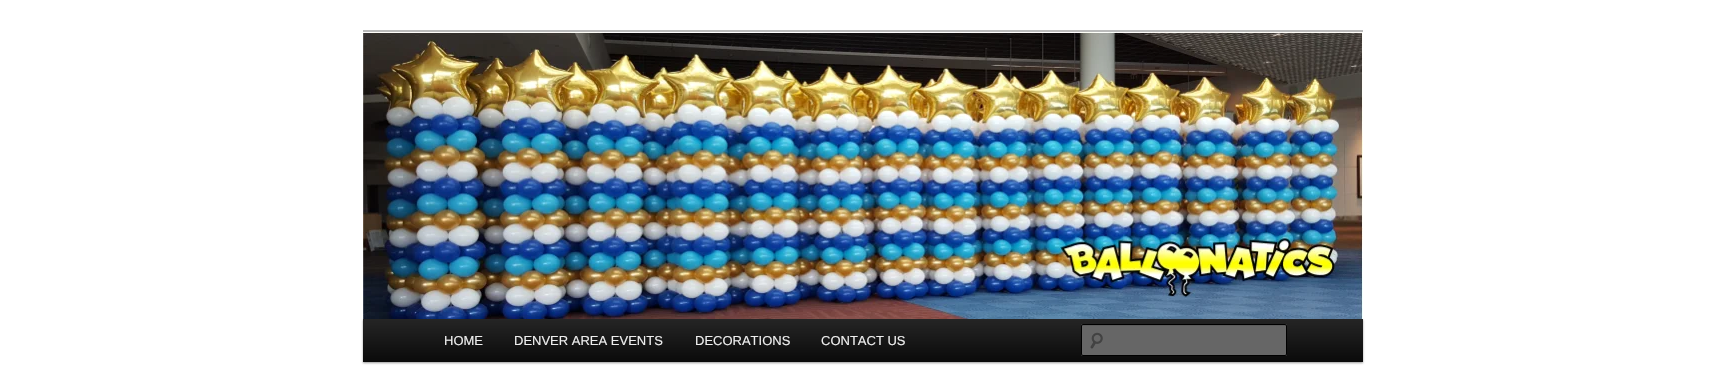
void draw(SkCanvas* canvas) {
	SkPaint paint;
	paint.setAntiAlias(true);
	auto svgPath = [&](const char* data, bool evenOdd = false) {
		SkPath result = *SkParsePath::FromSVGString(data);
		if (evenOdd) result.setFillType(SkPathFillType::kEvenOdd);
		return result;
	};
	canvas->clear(0xffffffff);
	paint.setColor(0xffbbbbbb);
	canvas->drawRect(SkRect::MakeXYWH(363, 30, 1000, 2), paint);
	paint.setColor(0x66000000);
	paint.setMaskFilter(SkMaskFilter::MakeBlur(kNormal_SkBlurStyle, 1));
	canvas->drawRect(SkRect::MakeXYWH(363, 320, 1000, 43), paint);
	paint.setMaskFilter(nullptr);
	canvas->drawImageRect(SkImages::DeferredFromEncodedData(SkData::MakeFromFileName("img1.png")), SkRect::MakeXYWH(363, 32, 1000, 287), SkSamplingOptions());
	{
		const SkColor colors[] = {0xff252525, 0xff0a0a0a};
		const float stops[] = {0, 1};
		const SkPoint ends[] = {{863, 319}, {863, 362}};
		paint.setShader(SkGradientShader::MakeLinear(ends, colors, stops, 2, SkTileMode::kClamp));
		paint.setAlpha(255);
	}
	canvas->drawRect(SkRect::MakeXYWH(363, 319, 1000, 43), paint);
	SkFont f1(fontMgr->matchFamilyStyle("Liberation Sans", SkFontStyle::Normal()), 13);
	f1.setSubpixel(true);
	paint.setShader(nullptr);
	paint.setColor(0xffeeeeee);
	canvas->drawString("HOME", 444, 345, f1, paint);
	canvas->drawString("DENVER AREA EVENTS", 514, 345, f1, paint);
	canvas->drawString("DECORATIONS", 695, 345, f1, paint);
	canvas->drawString("CONTACT US", 821, 345, f1, paint);
	paint.setColor(0xff666666);
	canvas->drawRoundRect(SkRect::MakeXYWH(1081, 324, 206, 32), 2, 2, paint);
	canvas->drawImageRect(SkImages::DeferredFromEncodedData(SkData::MakeFromFileName("img2.png")), SkRect::MakeXYWH(1090, 332, 13, 17), SkSamplingOptions());
	paint.setColor(0xff5c5c5c);
	canvas->drawPath(svgPath("M1083 326H1286V327V325H1285H1083C1082 325 1082 326 1082 327C1082 326 1082 326 1083 326Z"), paint);
	paint.setStroke(true);
	paint.setStrokeWidth(1);
	paint.setColor(0xff000000);
	canvas->drawRoundRect(SkRect::MakeXYWH(1081.5, 324.5, 205, 31), 1.5, 1.5, paint);
}
